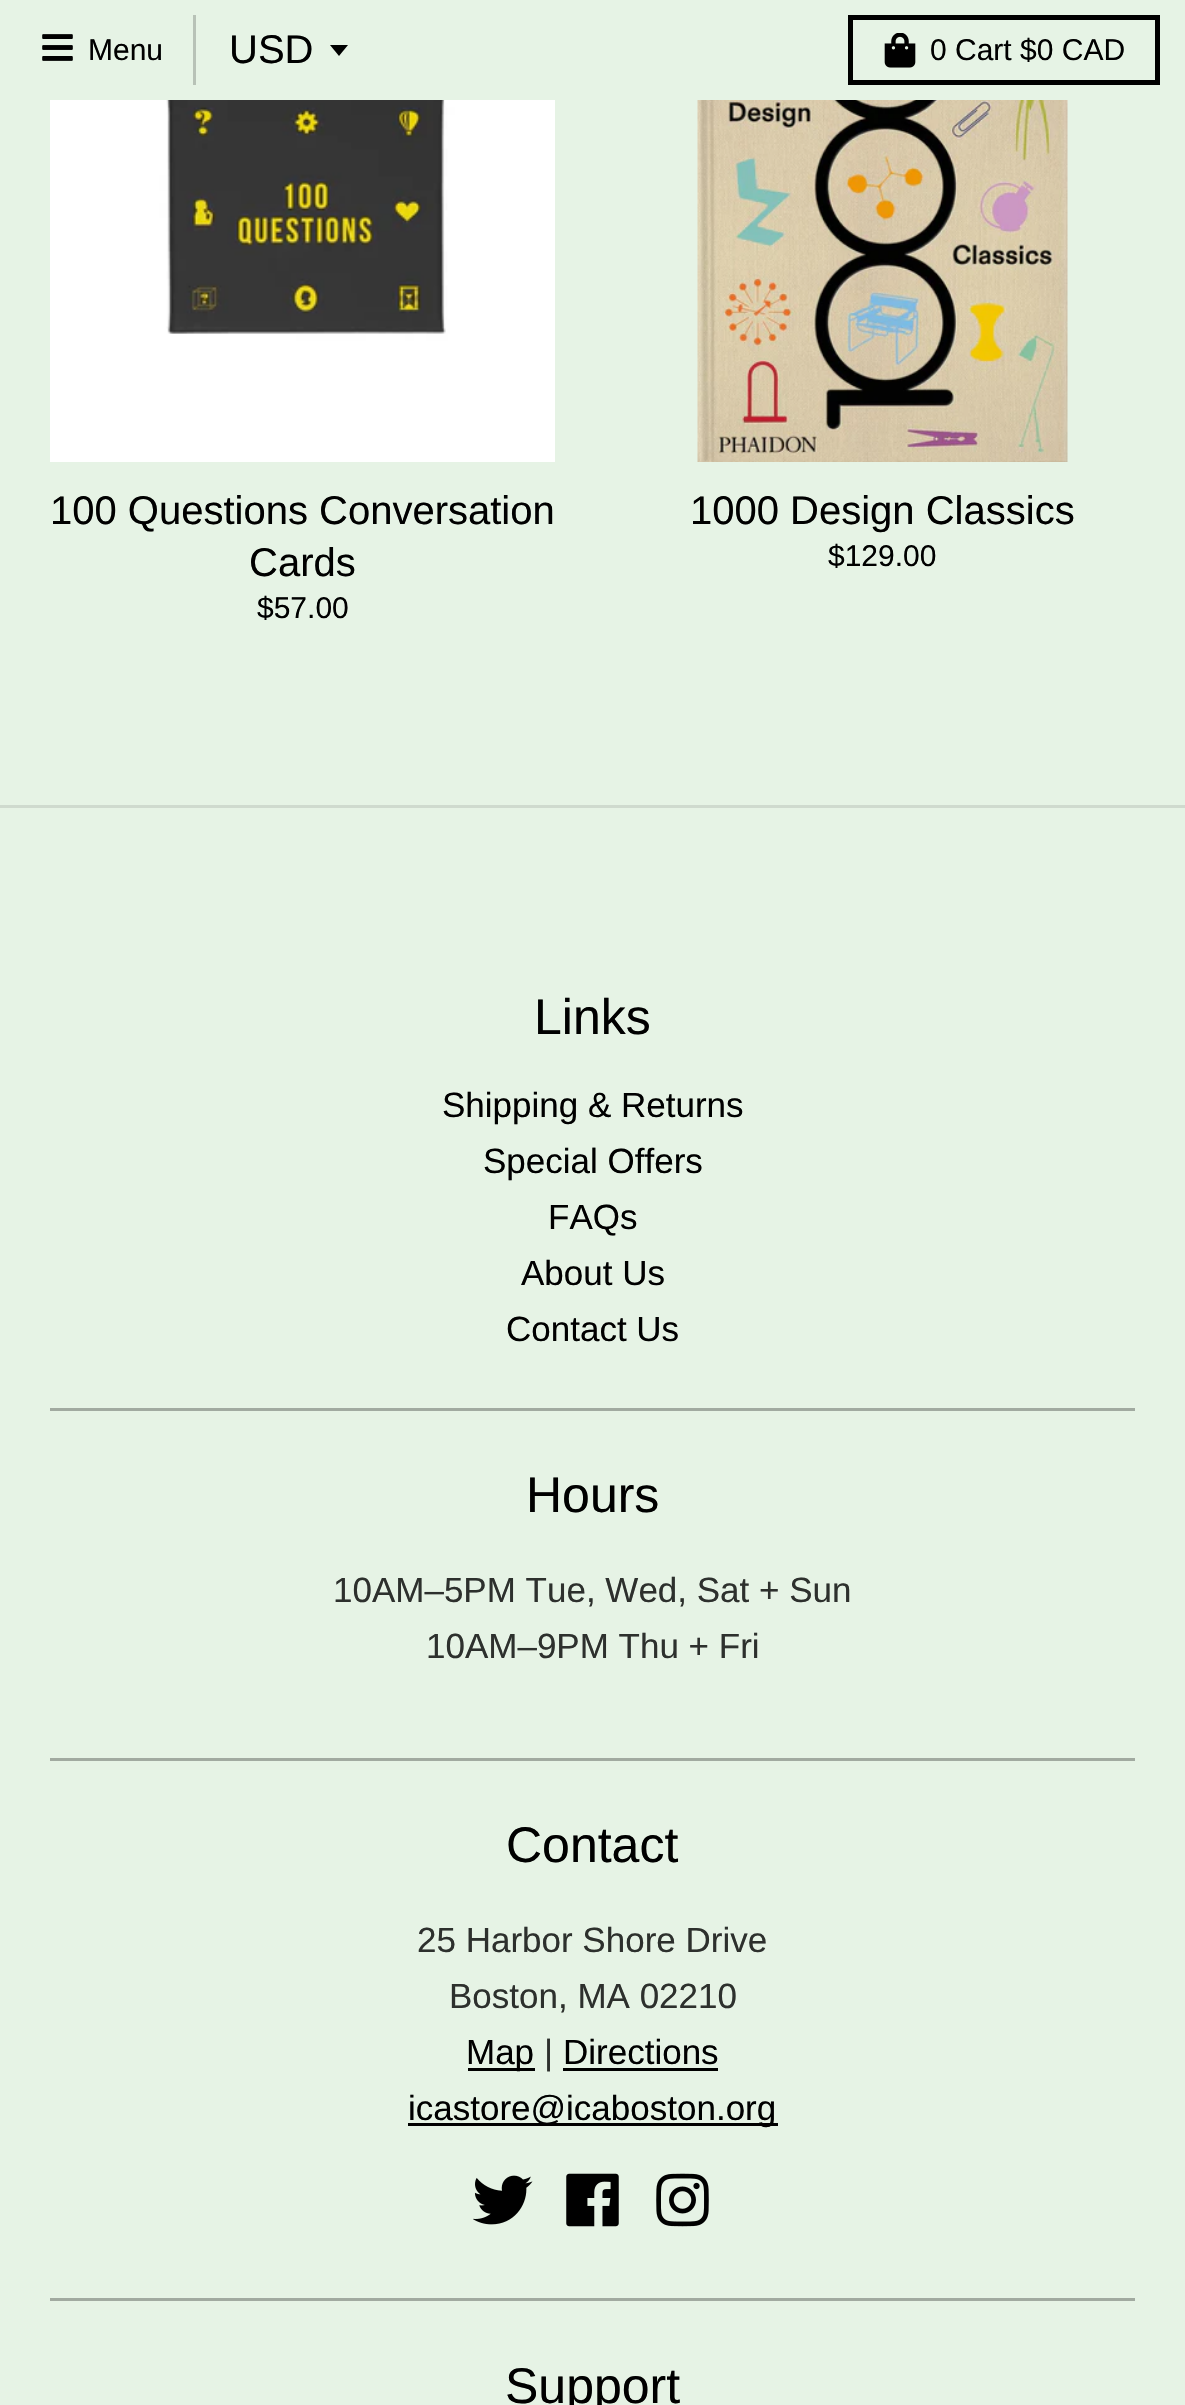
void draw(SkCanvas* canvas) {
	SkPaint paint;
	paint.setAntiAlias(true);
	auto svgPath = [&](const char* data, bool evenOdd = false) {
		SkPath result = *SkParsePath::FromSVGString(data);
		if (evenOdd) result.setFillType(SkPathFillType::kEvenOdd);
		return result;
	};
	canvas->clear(0xffe6f3e5);
	paint.setColor(0xffb8c2b7);
	canvas->drawRect(SkRect::MakeXYWH(193, 15, 3, 70), paint);
	canvas->drawImageRect(SkImages::DeferredFromEncodedData(SkData::MakeFromFileName("img1.png")), SkRect::MakeXYWH(42, 34, 31, 27), SkSamplingOptions());
	SkFont f1(fontMgr->matchFamilyStyle("Liberation Sans", SkFontStyle::Normal()), 30);
	f1.setSubpixel(true);
	paint.setColor(0xff000000);
	canvas->drawString("Menu", 88, 60, f1, paint);
	canvas->drawPath(svgPath("M330 45L339 56L348 45Z"), paint);
	SkFont f2(fontMgr->matchFamilyStyle("Liberation Sans", SkFontStyle::Normal()), 40);
	f2.setSubpixel(true);
	canvas->drawString("USD", 229, 63, f2, paint);
	paint.setStroke(true);
	paint.setStrokeWidth(5);
	canvas->drawRect(SkRect::MakeXYWH(850.5, 17.5, 307, 65), paint);
	canvas->drawImageRect(SkImages::DeferredFromEncodedData(SkData::MakeFromFileName("img2.png")), SkRect::MakeXYWH(884, 33, 32, 35), SkSamplingOptions());
	paint.setStroke(false);
	canvas->drawString("0 Cart $0 CAD", 930, 60, f1, paint);
	paint.setColor(0xffcfdace);
	canvas->drawRect(SkRect::MakeXYWH(0, 805, 1185, 3), paint);
	canvas->drawImageRect(SkImages::DeferredFromEncodedData(SkData::MakeFromFileName("img3.png")), SkRect::MakeXYWH(50, 100, 505, 362), SkSamplingOptions());
	paint.setColor(0xff000000);
	canvas->drawString("100 Questions Conversation", 50, 524, f2, paint);
	canvas->drawString("Cards", 249, 576, f2, paint);
	canvas->drawString("$57.00", 257, 618, f1, paint);
	canvas->drawImageRect(SkImages::DeferredFromEncodedData(SkData::MakeFromFileName("img4.png")), SkRect::MakeXYWH(697, 100, 371, 362), SkSamplingOptions());
	canvas->drawString("1000 Design Classics", 690, 524, f2, paint);
	canvas->drawString("$129.00", 828, 566, f1, paint);
	SkFont f3(fontMgr->matchFamilyStyle("Liberation Sans", SkFontStyle::Normal()), 50);
	f3.setSubpixel(true);
	canvas->drawString("Links", 534, 1034, f3, paint);
	paint.setColor(0xffa1aaa0);
	canvas->drawRect(SkRect::MakeXYWH(50, 1408, 1085, 3), paint);
	SkFont f4(fontMgr->matchFamilyStyle("Liberation Sans", SkFontStyle::Normal()), 35);
	f4.setSubpixel(true);
	paint.setColor(0xff000000);
	canvas->drawString("Shipping & Returns", 442, 1117, f4, paint);
	canvas->drawString("Special Offers", 483, 1173, f4, paint);
	canvas->drawString("FAQs", 548, 1229, f4, paint);
	canvas->drawString("About Us", 521, 1285, f4, paint);
	canvas->drawString("Contact Us", 506, 1341, f4, paint);
	canvas->drawString("Hours", 526, 1512, f3, paint);
	paint.setColor(0xffa1aaa0);
	canvas->drawRect(SkRect::MakeXYWH(50, 1758, 1085, 3), paint);
	paint.setColor(0xff2d302d);
	canvas->drawString("10AM–5PM Tue, Wed, Sat + Sun", 333, 1602, f4, paint);
	canvas->drawString("10AM–9PM Thu + Fri", 426, 1658, f4, paint);
	paint.setColor(0xff000000);
	canvas->drawString("Contact", 506, 1862, f3, paint);
	paint.setColor(0xff2d302d);
	canvas->drawString("25 Harbor Shore Drive", 417, 1952, f4, paint);
	canvas->drawString("Boston, MA 02210", 449, 2008, f4, paint);
	paint.setColor(0xff000000);
	canvas->drawRect(SkRect::MakeXYWH(468, 2068, 67, 3), paint);
	canvas->drawString("Map", 466, 2064, f4, paint);
	paint.setColor(0xff2d302d);
	canvas->drawString("|", 544, 2064, f4, paint);
	paint.setColor(0xff000000);
	canvas->drawString("Directions", 563, 2064, f4, paint);
	canvas->drawRect(SkRect::MakeXYWH(563, 2068, 155, 3), paint);
	canvas->drawRect(SkRect::MakeXYWH(408, 2123, 370, 3), paint);
	canvas->drawString("icastore@icaboston.org", 408, 2120, f4, paint);
	paint.setColor(0xffa1aaa0);
	canvas->drawRect(SkRect::MakeXYWH(50, 2298, 1085, 3), paint);
	canvas->drawImageRect(SkImages::DeferredFromEncodedData(SkData::MakeFromFileName("img5.png")), SkRect::MakeXYWH(473, 2175, 60, 50), SkSamplingOptions());
	canvas->drawImageRect(SkImages::DeferredFromEncodedData(SkData::MakeFromFileName("img6.png")), SkRect::MakeXYWH(566, 2173, 53, 54), SkSamplingOptions());
	canvas->drawImageRect(SkImages::DeferredFromEncodedData(SkData::MakeFromFileName("img7.png")), SkRect::MakeXYWH(656, 2173, 53, 54), SkSamplingOptions());
	paint.setColor(0xff000000);
	canvas->drawString("Support", 505, 2403, f3, paint);
}
